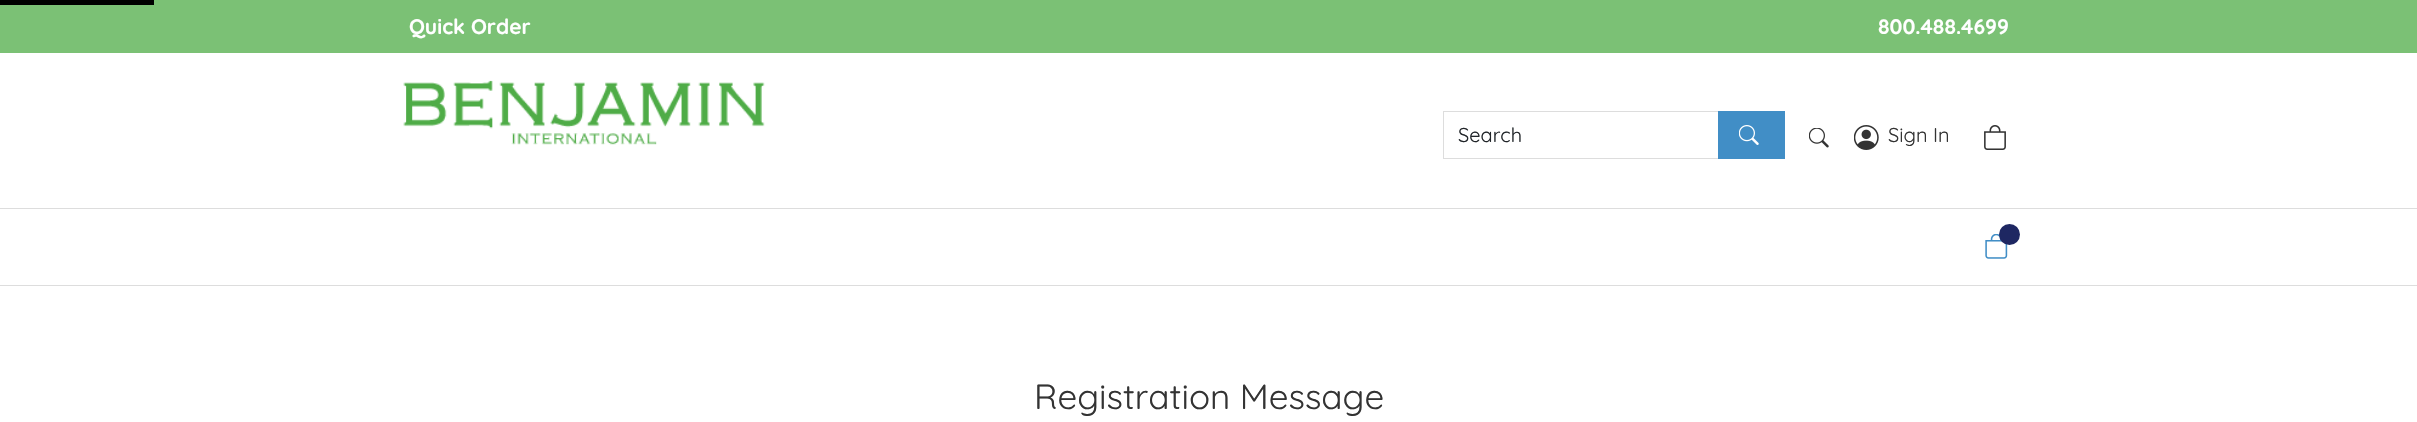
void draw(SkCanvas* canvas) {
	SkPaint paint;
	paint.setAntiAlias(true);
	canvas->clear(0xffffffff);
	paint.setColor(0xff7bc175);
	canvas->drawRect(SkRect::MakeXYWH(0, 0, 2417, 53), paint);
	paint.setColor(0xff000000);
	canvas->drawRect(SkRect::MakeXYWH(0, 0, 154, 5), paint);
	SkFont f1(fontMgr->matchFamilyStyle("Quicksand", SkFontStyle::Bold()), 21);
	f1.setSubpixel(true);
	paint.setColor(0xffffffff);
	canvas->drawString("Quick Order", 409, 34, f1, paint);
	canvas->drawString("800.488.4699", 1878, 34, f1, paint);
	canvas->drawImageRect(SkImages::DeferredFromEncodedData(SkData::MakeFromFileName("img1.png")), SkRect::MakeXYWH(403, 80, 362, 65), SkSamplingOptions());
	paint.setStroke(true);
	paint.setStrokeWidth(1);
	paint.setColor(0xffdddddd);
	canvas->drawRect(SkRect::MakeXYWH(1443.5, 111.5, 275, 47), paint);
	SkFont f2(fontMgr->matchFamilyStyle("Quicksand", SkFontStyle::Normal()), 20);
	f2.setSubpixel(true);
	paint.setStroke(false);
	paint.setColor(0xff212529);
	canvas->drawString("Search", 1458, 142, f2, paint);
	paint.setColor(0xff418ec6);
	canvas->drawRect(SkRect::MakeXYWH(1718, 111, 67, 48), paint);
	canvas->drawImageRect(SkImages::DeferredFromEncodedData(SkData::MakeFromFileName("img2.png")), SkRect::MakeXYWH(1739, 125, 20, 20), SkSamplingOptions());
	canvas->drawImageRect(SkImages::DeferredFromEncodedData(SkData::MakeFromFileName("img3.png")), SkRect::MakeXYWH(1809, 128, 20, 20), SkSamplingOptions());
	canvas->drawImageRect(SkImages::DeferredFromEncodedData(SkData::MakeFromFileName("img4.png")), SkRect::MakeXYWH(1854, 125, 25, 25), SkSamplingOptions());
	paint.setColor(0xff333333);
	canvas->drawString("Sign In", 1888, 142, f2, paint);
	canvas->drawImageRect(SkImages::DeferredFromEncodedData(SkData::MakeFromFileName("img5.png")), SkRect::MakeXYWH(1984, 125, 22, 25), SkSamplingOptions());
	paint.setColor(0xffdddddd);
	canvas->drawRect(SkRect::MakeXYWH(0, 208, 2417, 1), paint);
	canvas->drawRect(SkRect::MakeXYWH(0, 285, 2417, 1), paint);
	canvas->drawImageRect(SkImages::DeferredFromEncodedData(SkData::MakeFromFileName("img6.png")), SkRect::MakeXYWH(1985, 234, 23, 25), SkSamplingOptions());
	paint.setColor(0xff1e2762);
	canvas->drawCircle(2009.5, 234.5, 10.5, paint);
	SkFont f3(fontMgr->matchFamilyStyle("Quicksand", SkFontStyle::Normal()), 35);
	f3.setSubpixel(true);
	paint.setColor(0xff333333);
	canvas->drawString("Registration Message", 1034, 409, f3, paint);
}
